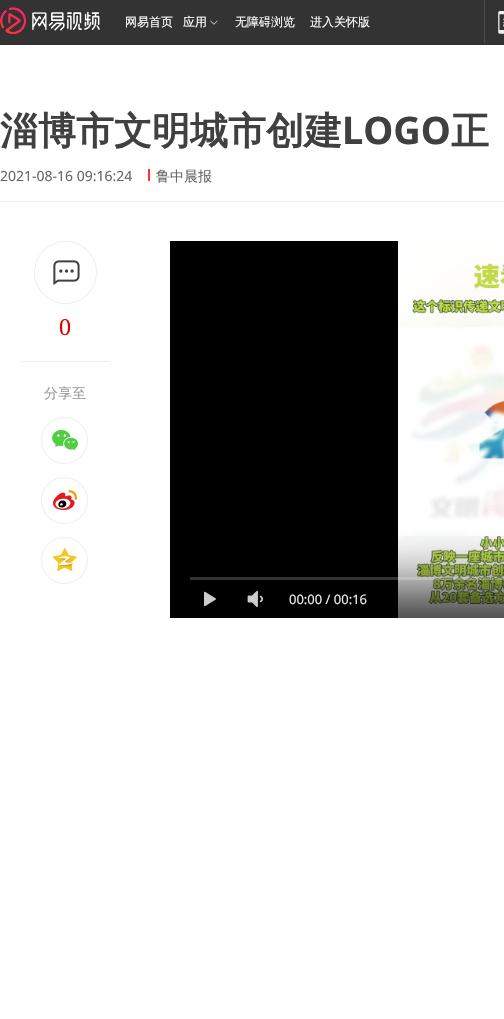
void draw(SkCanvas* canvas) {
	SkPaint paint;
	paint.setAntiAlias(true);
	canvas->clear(0xffffffff);
	paint.setColor(0xff333333);
	canvas->drawRect(SkRect::MakeXYWH(0, 0, 504, 45), paint);
	canvas->drawImageRect(SkImages::DeferredFromEncodedData(SkData::MakeFromFileName("img1.png")), SkRect::MakeXYWH(0, 7, 100, 28), SkSamplingOptions());
	SkFont f1(fontMgr->matchFamilyStyle("WenQuanYi Zen Hei", SkFontStyle(500, SkFontStyle::kNormal_Width, SkFontStyle::kUpright_Slant)), 12);
	f1.setSubpixel(true);
	paint.setColor(0xffffffff);
	canvas->drawString("网易首页", 125, 26, f1, paint);
	canvas->drawString("应用", 183, 26, f1, paint);
	canvas->drawImageRect(SkImages::DeferredFromEncodedData(SkData::MakeFromFileName("img2.png")), SkRect::MakeXYWH(210, 20, 8, 5), SkSamplingOptions());
	canvas->drawString("无障碍浏览", 235, 26, f1, paint);
	canvas->drawString("进入关怀版", 310, 26, f1, paint);
	paint.setColor(0xff4d4d4d);
	canvas->drawRect(SkRect::MakeXYWH(484, 0, 1, 43), paint);
	canvas->drawImageRect(SkImages::DeferredFromEncodedData(SkData::MakeFromFileName("img3.png")), SkRect::MakeXYWH(498, 11, 6, 23), SkSamplingOptions());
	paint.setColor(0xffeeeeee);
	canvas->drawRect(SkRect::MakeXYWH(0, 201, 504, 1), paint);
	SkFont f2(fontMgr->matchFamilyStyle("WenQuanYi Zen Hei", SkFontStyle::Bold()), 38);
	f2.setSubpixel(true);
	paint.setColor(0xff404040);
	canvas->drawString("淄博市文明城市创建", 0, 144, f2, paint);
	SkFont f3(fontMgr->matchFamilyStyle("Noto Sans", SkFontStyle::Bold()), 38);
	f3.setSubpixel(true);
	canvas->drawString("LOGO", 342, 144, f3, paint);
	canvas->drawString("正", 451, 144, f2, paint);
	SkFont f4(fontMgr->matchFamilyStyle("Noto Sans", SkFontStyle::Normal()), 14);
	f4.setSubpixel(true);
	paint.setColor(0xff666666);
	canvas->drawString("2021-08-16 09:16:24", 0, 181, f4, paint);
	paint.setColor(0xffff3333);
	canvas->drawRect(SkRect::MakeXYWH(148, 169, 2, 12), paint);
	SkFont f5(fontMgr->matchFamilyStyle("WenQuanYi Zen Hei", SkFontStyle(500, SkFontStyle::kNormal_Width, SkFontStyle::kUpright_Slant)), 14);
	f5.setSubpixel(true);
	paint.setColor(0xff666666);
	canvas->drawString("鲁中晨报", 156, 181, f5, paint);
	paint.setColor(0xffeeeeee);
	canvas->drawRect(SkRect::MakeXYWH(20, 361, 90, 1), paint);
	canvas->drawImageRect(SkImages::DeferredFromEncodedData(SkData::MakeFromFileName("img4.png")), SkRect::MakeXYWH(34, 241, 63, 63), SkSamplingOptions());
	SkFont f6(fontMgr->matchFamilyStyle("Liberation Serif", SkFontStyle::Normal()), 24);
	f6.setSubpixel(true);
	paint.setColor(0xffe10000);
	canvas->drawString("0", 59, 335, f6, paint);
	paint.setColor(0xff999999);
	canvas->drawString("分享至", 44, 398, f5, paint);
	canvas->drawImageRect(SkImages::DeferredFromEncodedData(SkData::MakeFromFileName("img5.png")), SkRect::MakeXYWH(41, 417, 47, 47), SkSamplingOptions());
	canvas->drawImageRect(SkImages::DeferredFromEncodedData(SkData::MakeFromFileName("img6.png")), SkRect::MakeXYWH(41, 477, 47, 47), SkSamplingOptions());
	canvas->drawImageRect(SkImages::DeferredFromEncodedData(SkData::MakeFromFileName("img7.png")), SkRect::MakeXYWH(41, 537, 47, 47), SkSamplingOptions());
	paint.setColor(0xff000000);
	canvas->drawRect(SkRect::MakeXYWH(170, 241, 228, 377), paint);
	canvas->drawImageRect(SkImages::DeferredFromEncodedData(SkData::MakeFromFileName("img8.png")), SkRect::MakeXYWH(398, 241, 106, 377), SkSamplingOptions());
	canvas->drawImageRect(SkImages::DeferredFromEncodedData(SkData::MakeFromFileName("img11.png")), SkRect::MakeXYWH(398, 536, 106, 82), SkSamplingOptions());
	paint.setColor(0x33ffffff);
	canvas->drawRect(SkRect::MakeXYWH(190, 577, 314, 3), paint);
	canvas->drawImageRect(SkImages::DeferredFromEncodedData(SkData::MakeFromFileName("img9.png")), SkRect::MakeXYWH(204, 591, 12, 16), SkSamplingOptions());
	canvas->drawImageRect(SkImages::DeferredFromEncodedData(SkData::MakeFromFileName("img10.png")), SkRect::MakeXYWH(247, 590, 16, 18), SkSamplingOptions());
	SkFont f7(fontMgr->matchFamilyStyle("Noto Sans", SkFontStyle::Normal()), 13);
	f7.setSubpixel(true);
	paint.setColor(0xffeeeeee);
	canvas->drawString("00:00 / 00:16", 289, 604, f7, paint);
}
